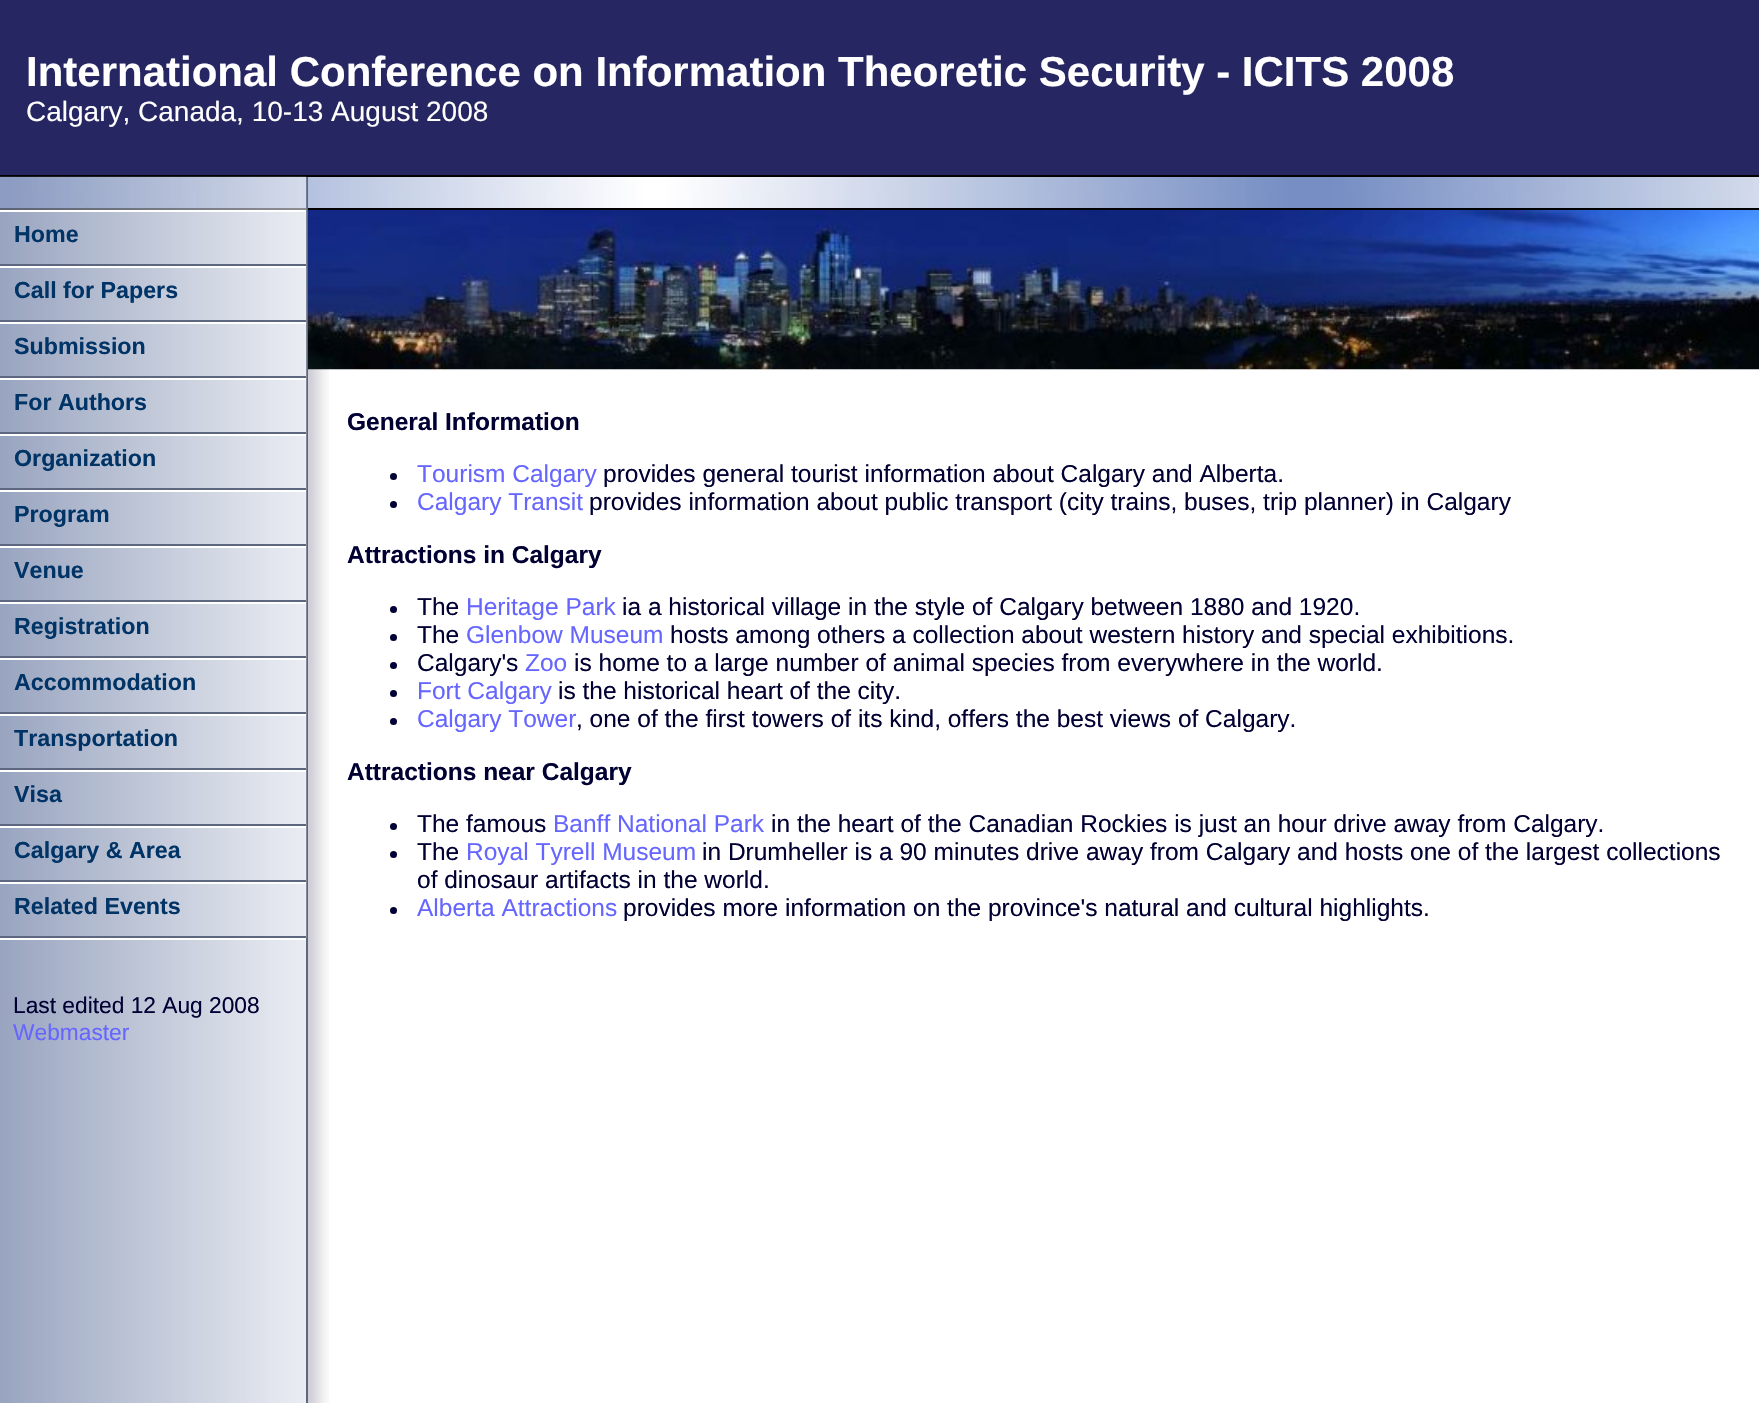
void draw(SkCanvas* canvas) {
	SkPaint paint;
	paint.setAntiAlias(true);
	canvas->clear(0xffffffff);
	paint.setColor(0xff262662);
	canvas->drawRect(SkRect::MakeXYWH(0, 0, 1759, 175), paint);
	SkFont f1(fontMgr->matchFamilyStyle("Liberation Sans", SkFontStyle::Bold()), 42);
	f1.setSubpixel(true);
	paint.setColor(0xffffffff);
	canvas->drawString("International Conference on Information Theoretic Security - ICITS 2008", 26, 86, f1, paint);
	SkFont f2(fontMgr->matchFamilyStyle("Liberation Sans", SkFontStyle::Normal()), 28);
	f2.setSubpixel(true);
	canvas->drawString("Calgary, Canada, 10-13 August 2008", 26, 121, f2, paint);
	canvas->drawImageRect(SkImages::DeferredFromEncodedData(SkData::MakeFromFileName("img1.png")), SkRect::MakeXYWH(0, 177, 1759, 31), SkSamplingOptions());
	paint.setColor(0xff000000);
	canvas->drawRect(SkRect::MakeXYWH(0, 175, 1759, 2), paint);
	canvas->drawRect(SkRect::MakeXYWH(0, 208, 1759, 2), paint);
	canvas->drawImageRect(SkImages::DeferredFromEncodedData(SkData::MakeFromFileName("img2.png")), SkRect::MakeXYWH(0, 940, 306, 463), SkSamplingOptions());
	paint.setColor(0xff5d687f);
	canvas->drawRect(SkRect::MakeXYWH(306, 177, 2, 1226), paint);
	canvas->drawImageRect(SkImages::DeferredFromEncodedData(SkData::MakeFromFileName("img3.png")), SkRect::MakeXYWH(0, 176, 307, 34), SkSamplingOptions());
	canvas->drawImageRect(SkImages::DeferredFromEncodedData(SkData::MakeFromFileName("img4.png")), SkRect::MakeXYWH(0, 210, 307, 56), SkSamplingOptions());
	paint.setColor(0xffffffff);
	canvas->drawRect(SkRect::MakeXYWH(0, 210, 306, 2), paint);
	paint.setColor(0xff5d687f);
	canvas->drawRect(SkRect::MakeXYWH(0, 264, 306, 2), paint);
	SkFont f3(fontMgr->matchFamilyStyle("Liberation Sans", SkFontStyle::Bold()), 23.25);
	f3.setSubpixel(true);
	paint.setColor(0xff003366);
	canvas->drawString("Home", 14, 242, f3, paint);
	canvas->drawImageRect(SkImages::DeferredFromEncodedData(SkData::MakeFromFileName("img5.png")), SkRect::MakeXYWH(0, 266, 307, 56), SkSamplingOptions());
	paint.setColor(0xffffffff);
	canvas->drawRect(SkRect::MakeXYWH(0, 266, 306, 2), paint);
	paint.setColor(0xff5d687f);
	canvas->drawRect(SkRect::MakeXYWH(0, 320, 306, 2), paint);
	paint.setColor(0xff003366);
	canvas->drawString("Call for Papers", 14, 298, f3, paint);
	canvas->drawImageRect(SkImages::DeferredFromEncodedData(SkData::MakeFromFileName("img6.png")), SkRect::MakeXYWH(0, 322, 307, 56), SkSamplingOptions());
	paint.setColor(0xffffffff);
	canvas->drawRect(SkRect::MakeXYWH(0, 322, 306, 2), paint);
	paint.setColor(0xff5d687f);
	canvas->drawRect(SkRect::MakeXYWH(0, 376, 306, 2), paint);
	paint.setColor(0xff003366);
	canvas->drawString("Submission", 14, 354, f3, paint);
	canvas->drawImageRect(SkImages::DeferredFromEncodedData(SkData::MakeFromFileName("img7.png")), SkRect::MakeXYWH(0, 378, 307, 56), SkSamplingOptions());
	paint.setColor(0xffffffff);
	canvas->drawRect(SkRect::MakeXYWH(0, 378, 306, 2), paint);
	paint.setColor(0xff5d687f);
	canvas->drawRect(SkRect::MakeXYWH(0, 432, 306, 2), paint);
	paint.setColor(0xff003366);
	canvas->drawString("For Authors", 14, 410, f3, paint);
	canvas->drawImageRect(SkImages::DeferredFromEncodedData(SkData::MakeFromFileName("img8.png")), SkRect::MakeXYWH(0, 434, 307, 56), SkSamplingOptions());
	paint.setColor(0xffffffff);
	canvas->drawRect(SkRect::MakeXYWH(0, 434, 306, 2), paint);
	paint.setColor(0xff5d687f);
	canvas->drawRect(SkRect::MakeXYWH(0, 488, 306, 2), paint);
	paint.setColor(0xff003366);
	canvas->drawString("Organization", 14, 466, f3, paint);
	canvas->drawImageRect(SkImages::DeferredFromEncodedData(SkData::MakeFromFileName("img9.png")), SkRect::MakeXYWH(0, 490, 307, 56), SkSamplingOptions());
	paint.setColor(0xffffffff);
	canvas->drawRect(SkRect::MakeXYWH(0, 490, 306, 2), paint);
	paint.setColor(0xff5d687f);
	canvas->drawRect(SkRect::MakeXYWH(0, 544, 306, 2), paint);
	paint.setColor(0xff003366);
	canvas->drawString("Program", 14, 522, f3, paint);
	canvas->drawImageRect(SkImages::DeferredFromEncodedData(SkData::MakeFromFileName("img10.png")), SkRect::MakeXYWH(0, 546, 307, 56), SkSamplingOptions());
	paint.setColor(0xffffffff);
	canvas->drawRect(SkRect::MakeXYWH(0, 546, 306, 2), paint);
	paint.setColor(0xff5d687f);
	canvas->drawRect(SkRect::MakeXYWH(0, 600, 306, 2), paint);
	paint.setColor(0xff003366);
	canvas->drawString("Venue", 14, 578, f3, paint);
	canvas->drawImageRect(SkImages::DeferredFromEncodedData(SkData::MakeFromFileName("img10.png")), SkRect::MakeXYWH(0, 602, 307, 56), SkSamplingOptions());
	paint.setColor(0xffffffff);
	canvas->drawRect(SkRect::MakeXYWH(0, 602, 306, 2), paint);
	paint.setColor(0xff5d687f);
	canvas->drawRect(SkRect::MakeXYWH(0, 656, 306, 2), paint);
	paint.setColor(0xff003366);
	canvas->drawString("Registration", 14, 634, f3, paint);
	canvas->drawImageRect(SkImages::DeferredFromEncodedData(SkData::MakeFromFileName("img11.png")), SkRect::MakeXYWH(0, 658, 307, 56), SkSamplingOptions());
	paint.setColor(0xffffffff);
	canvas->drawRect(SkRect::MakeXYWH(0, 658, 306, 2), paint);
	paint.setColor(0xff5d687f);
	canvas->drawRect(SkRect::MakeXYWH(0, 712, 306, 2), paint);
	paint.setColor(0xff003366);
	canvas->drawString("Accommodation", 14, 690, f3, paint);
	canvas->drawImageRect(SkImages::DeferredFromEncodedData(SkData::MakeFromFileName("img12.png")), SkRect::MakeXYWH(0, 714, 307, 56), SkSamplingOptions());
	paint.setColor(0xffffffff);
	canvas->drawRect(SkRect::MakeXYWH(0, 714, 306, 2), paint);
	paint.setColor(0xff5d687f);
	canvas->drawRect(SkRect::MakeXYWH(0, 768, 306, 2), paint);
	paint.setColor(0xff003366);
	canvas->drawString("Transportation", 14, 746, f3, paint);
	canvas->drawImageRect(SkImages::DeferredFromEncodedData(SkData::MakeFromFileName("img13.png")), SkRect::MakeXYWH(0, 770, 307, 56), SkSamplingOptions());
	paint.setColor(0xffffffff);
	canvas->drawRect(SkRect::MakeXYWH(0, 770, 306, 2), paint);
	paint.setColor(0xff5d687f);
	canvas->drawRect(SkRect::MakeXYWH(0, 824, 306, 2), paint);
	paint.setColor(0xff003366);
	canvas->drawString("Visa", 14, 802, f3, paint);
	canvas->drawImageRect(SkImages::DeferredFromEncodedData(SkData::MakeFromFileName("img14.png")), SkRect::MakeXYWH(0, 826, 307, 56), SkSamplingOptions());
	paint.setColor(0xffffffff);
	canvas->drawRect(SkRect::MakeXYWH(0, 826, 306, 2), paint);
	paint.setColor(0xff5d687f);
	canvas->drawRect(SkRect::MakeXYWH(0, 880, 306, 2), paint);
	paint.setColor(0xff003366);
	canvas->drawString("Calgary & Area", 14, 858, f3, paint);
	canvas->drawImageRect(SkImages::DeferredFromEncodedData(SkData::MakeFromFileName("img14.png")), SkRect::MakeXYWH(0, 882, 307, 56), SkSamplingOptions());
	paint.setColor(0xffffffff);
	canvas->drawRect(SkRect::MakeXYWH(0, 882, 306, 2), paint);
	paint.setColor(0xff5d687f);
	canvas->drawRect(SkRect::MakeXYWH(0, 936, 306, 2), paint);
	paint.setColor(0xff003366);
	canvas->drawString("Related Events", 14, 914, f3, paint);
	paint.setColor(0xffffffff);
	canvas->drawRect(SkRect::MakeXYWH(306, 938, 2, 2), paint);
	paint.setColor(0xff5d687f);
	canvas->drawRect(SkRect::MakeXYWH(306, 938, 2, 2), paint);
	SkFont f4(fontMgr->matchFamilyStyle("Liberation Sans", SkFontStyle::Normal()), 22.75);
	f4.setSubpixel(true);
	paint.setColor(0xff000033);
	canvas->drawString("Last edited 12 Aug 2008", 13, 1013, f4, paint);
	paint.setColor(0xff6666ff);
	canvas->drawString("Webmaster", 13, 1040, f4, paint);
	canvas->drawImageRect(SkImages::DeferredFromEncodedData(SkData::MakeFromFileName("img15.png")), SkRect::MakeXYWH(308, 369, 21, 1034), SkSamplingOptions());
	canvas->drawImageRect(SkImages::DeferredFromEncodedData(SkData::MakeFromFileName("img16.png")), SkRect::MakeXYWH(308, 210, 1451, 160), SkSamplingOptions());
	SkFont f5(fontMgr->matchFamilyStyle("Liberation Sans", SkFontStyle::Bold()), 24.5);
	f5.setSubpixel(true);
	paint.setColor(0xff000033);
	canvas->drawString("General Information", 347, 430, f5, paint);
	canvas->drawCircle(393.5, 476.5, 3.5, paint);
	SkFont f6(fontMgr->matchFamilyStyle("Liberation Sans", SkFontStyle::Normal()), 24.5);
	f6.setSubpixel(true);
	paint.setColor(0xff6666ff);
	canvas->drawString("Tourism Calgary", 417, 482, f6, paint);
	paint.setColor(0xff000033);
	canvas->drawString("provides general tourist information about Calgary and Alberta.", 603, 482, f6, paint);
	canvas->drawCircle(393.5, 504.5, 3.5, paint);
	paint.setColor(0xff6666ff);
	canvas->drawString("Calgary Transit", 417, 510, f6, paint);
	paint.setColor(0xff000033);
	canvas->drawString("provides information about public transport (city trains, buses, trip planner) in Calgary", 589, 510, f6, paint);
	canvas->drawString("Attractions in Calgary", 347, 563, f5, paint);
	canvas->drawCircle(393.5, 609.5, 3.5, paint);
	canvas->drawString("The", 417, 615, f6, paint);
	paint.setColor(0xff6666ff);
	canvas->drawString("Heritage Park", 466, 615, f6, paint);
	paint.setColor(0xff000033);
	canvas->drawString("ia a historical village in the style of Calgary between 1880 and 1920.", 622, 615, f6, paint);
	canvas->drawCircle(393.5, 637.5, 3.5, paint);
	canvas->drawString("The", 417, 643, f6, paint);
	paint.setColor(0xff6666ff);
	canvas->drawString("Glenbow Museum", 466, 643, f6, paint);
	paint.setColor(0xff000033);
	canvas->drawString("hosts among others a collection about western history and special exhibitions.", 670, 643, f6, paint);
	canvas->drawCircle(393.5, 665.5, 3.5, paint);
	canvas->drawString("Calgary's", 417, 671, f6, paint);
	paint.setColor(0xff6666ff);
	canvas->drawString("Zoo", 525, 671, f6, paint);
	paint.setColor(0xff000033);
	canvas->drawString("is home to a large number of animal species from everywhere in the world.", 574, 671, f6, paint);
	canvas->drawCircle(393.5, 693.5, 3.5, paint);
	paint.setColor(0xff6666ff);
	canvas->drawString("Fort Calgary", 417, 699, f6, paint);
	paint.setColor(0xff000033);
	canvas->drawString("is the historical heart of the city.", 558, 699, f6, paint);
	canvas->drawCircle(393.5, 721.5, 3.5, paint);
	paint.setColor(0xff6666ff);
	canvas->drawString("Calgary Tower", 417, 727, f6, paint);
	paint.setColor(0xff000033);
	canvas->drawString(", one of the first towers of its kind, offers the best views of Calgary.", 576, 727, f6, paint);
	canvas->drawString("Attractions near Calgary", 347, 780, f5, paint);
	canvas->drawCircle(393.5, 826.5, 3.5, paint);
	canvas->drawString("The famous", 417, 832, f6, paint);
	paint.setColor(0xff6666ff);
	canvas->drawString("Banff National Park", 553, 832, f6, paint);
	paint.setColor(0xff000033);
	canvas->drawString("in the heart of the Canadian Rockies is just an hour drive away from Calgary.", 771, 832, f6, paint);
	canvas->drawCircle(393.5, 854.5, 3.5, paint);
	canvas->drawString("The", 417, 860, f6, paint);
	paint.setColor(0xff6666ff);
	canvas->drawString("Royal Tyrell Museum", 466, 860, f6, paint);
	paint.setColor(0xff000033);
	canvas->drawString("in Drumheller is a 90 minutes drive away from Calgary and hosts one of the largest collections", 702, 860, f6, paint);
	canvas->drawString("of dinosaur artifacts in the world.", 417, 888, f6, paint);
	canvas->drawCircle(393.5, 910.5, 3.5, paint);
	paint.setColor(0xff6666ff);
	canvas->drawString("Alberta Attractions", 417, 916, f6, paint);
	paint.setColor(0xff000033);
	canvas->drawString("provides more information on the province's natural and cultural highlights.", 623, 916, f6, paint);
}
